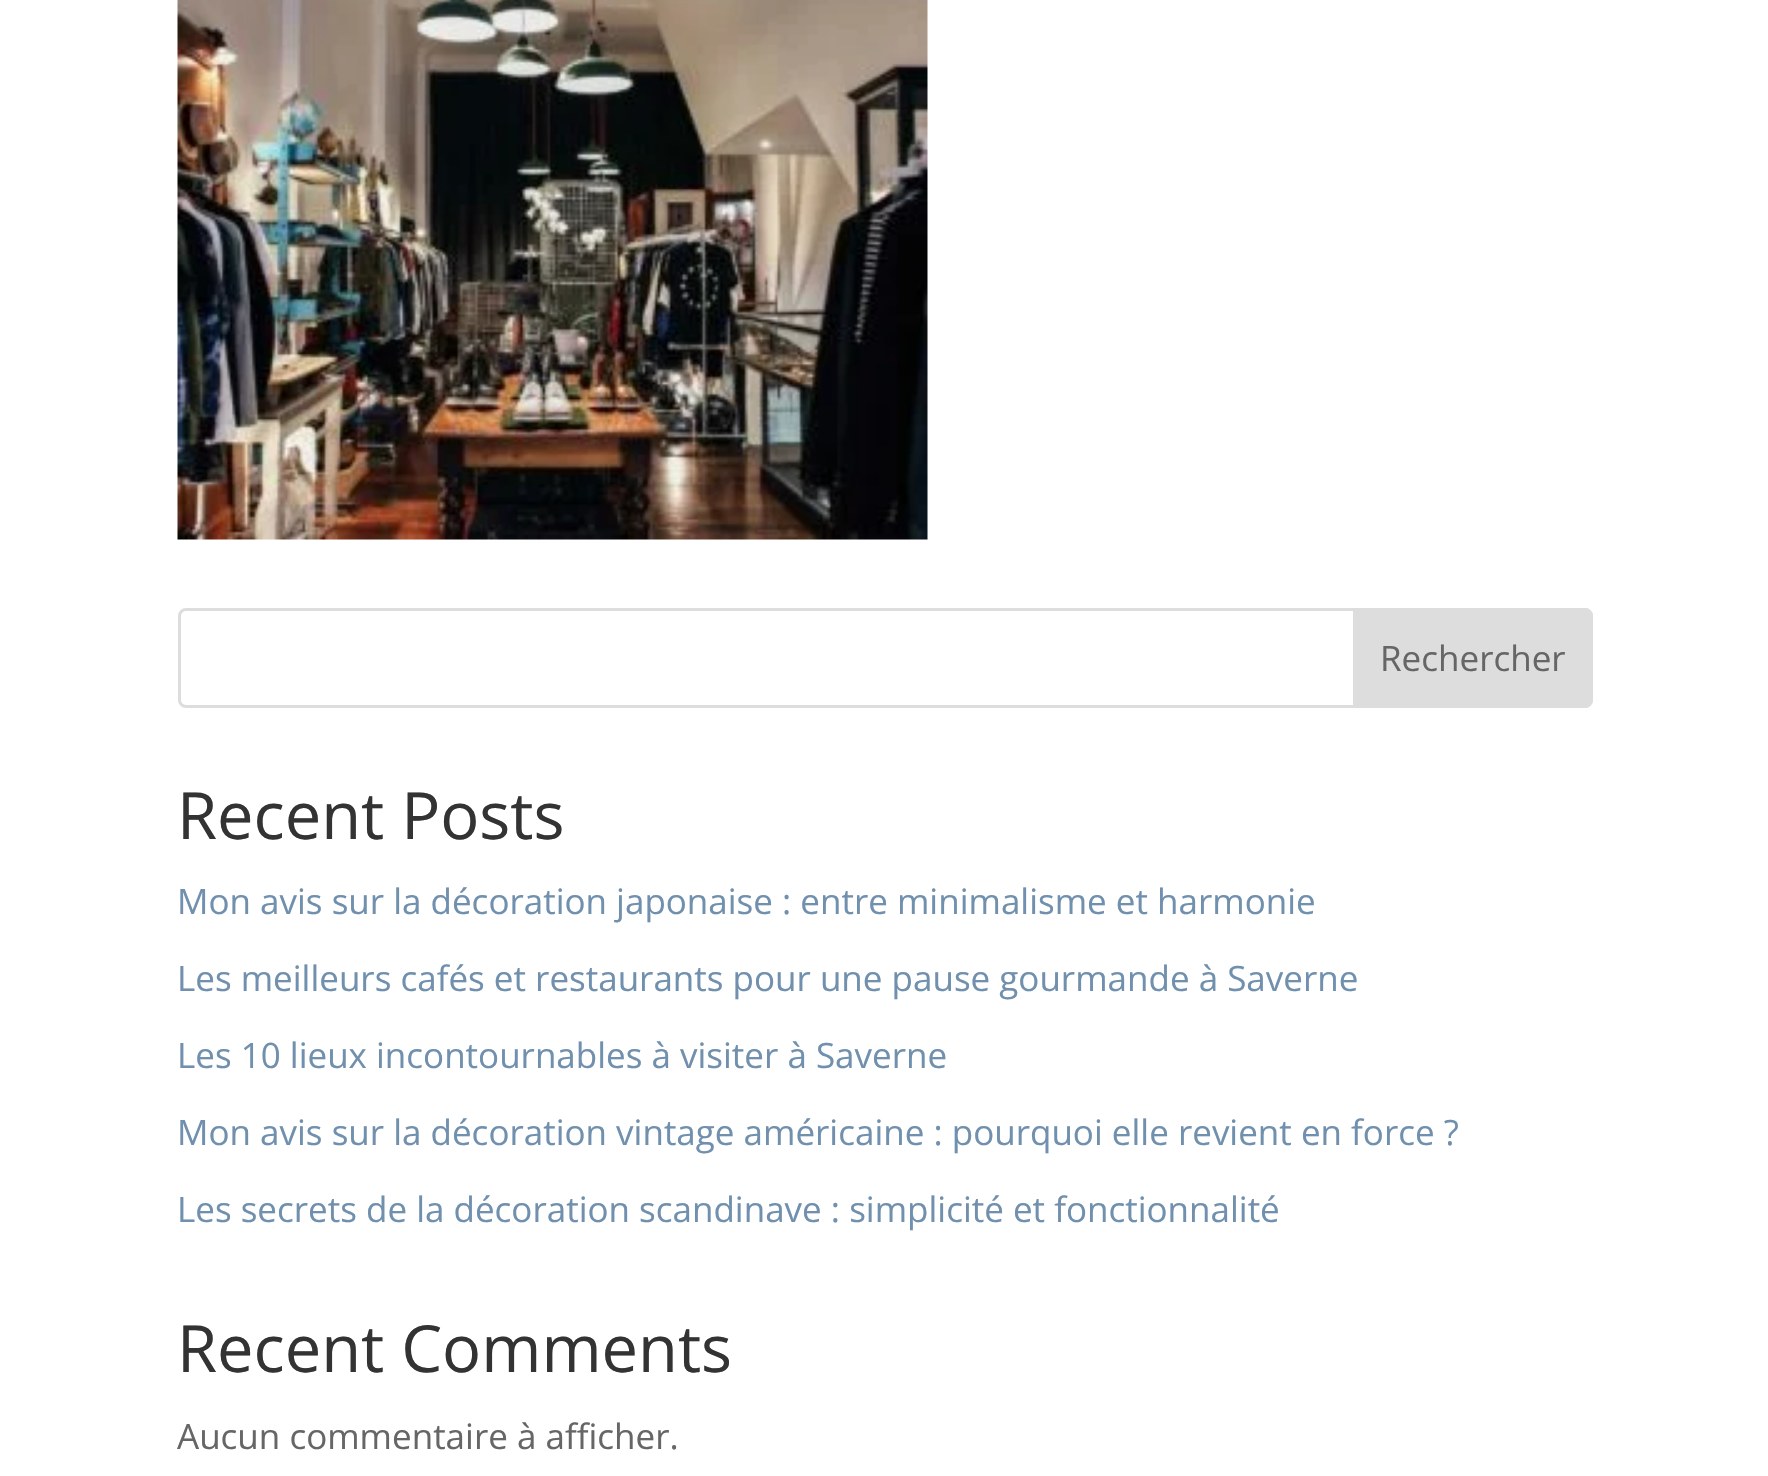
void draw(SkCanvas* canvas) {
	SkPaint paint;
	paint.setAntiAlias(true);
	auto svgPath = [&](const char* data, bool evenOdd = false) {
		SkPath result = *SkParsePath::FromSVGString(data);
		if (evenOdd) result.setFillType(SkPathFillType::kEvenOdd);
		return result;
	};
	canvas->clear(0xffffffff);
	canvas->drawImageRect(SkImages::DeferredFromEncodedData(SkData::MakeFromFileName("img1.png")), SkRect::MakeXYWH(177, 0, 751, 540), SkSamplingOptions());
	paint.setStroke(true);
	paint.setStrokeWidth(3);
	paint.setColor(0xffdddddd);
	canvas->drawRoundRect(SkRect::MakeXYWH(179.5, 609.5, 1412, 97), 6.5, 6.5, paint);
	paint.setStroke(false);
	canvas->drawPath(svgPath("M1354.5 609.5H1585C1588.5 609.5 1591.5 612.5 1591.5 616V700C1591.5 703.5 1588.5 706.5 1585 706.5H1354.5Z"), paint);
	paint.setStroke(true);
	canvas->drawPath(svgPath("M1354.5 609.5H1585C1588.5 609.5 1591.5 612.5 1591.5 616V700C1591.5 703.5 1588.5 706.5 1585 706.5H1354.5Z"), paint);
	SkFont f1(fontMgr->matchFamilyStyle("Open Sans", SkFontStyle::Normal()), 35);
	f1.setSubpixel(true);
	paint.setStroke(false);
	paint.setColor(0xff666666);
	canvas->drawString("Rechercher", 1380, 671, f1, paint);
	SkFont f2(fontMgr->matchFamilyStyle("Open Sans", SkFontStyle::Normal()), 65);
	f2.setSubpixel(true);
	paint.setColor(0xff333333);
	canvas->drawString("Recent Posts", 177, 839, f2, paint);
	paint.setColor(0xff7090ae);
	canvas->drawString("Mon avis sur la décoration japonaise : entre minimalisme et harmonie", 177, 914, f1, paint);
	canvas->drawString("Les meilleurs cafés et restaurants pour une pause gourmande à Saverne", 177, 991, f1, paint);
	canvas->drawString("Les 10 lieux incontournables à visiter à Saverne", 177, 1068, f1, paint);
	canvas->drawString("Mon avis sur la décoration vintage américaine : pourquoi elle revient en force ?", 177, 1145, f1, paint);
	canvas->drawString("Les secrets de la décoration scandinave : simplicité et fonctionnalité", 177, 1222, f1, paint);
	paint.setColor(0xff333333);
	canvas->drawString("Recent Comments", 177, 1372, f2, paint);
	paint.setColor(0xff666666);
	canvas->drawString("Aucun commentaire à afficher.", 177, 1449, f1, paint);
}
